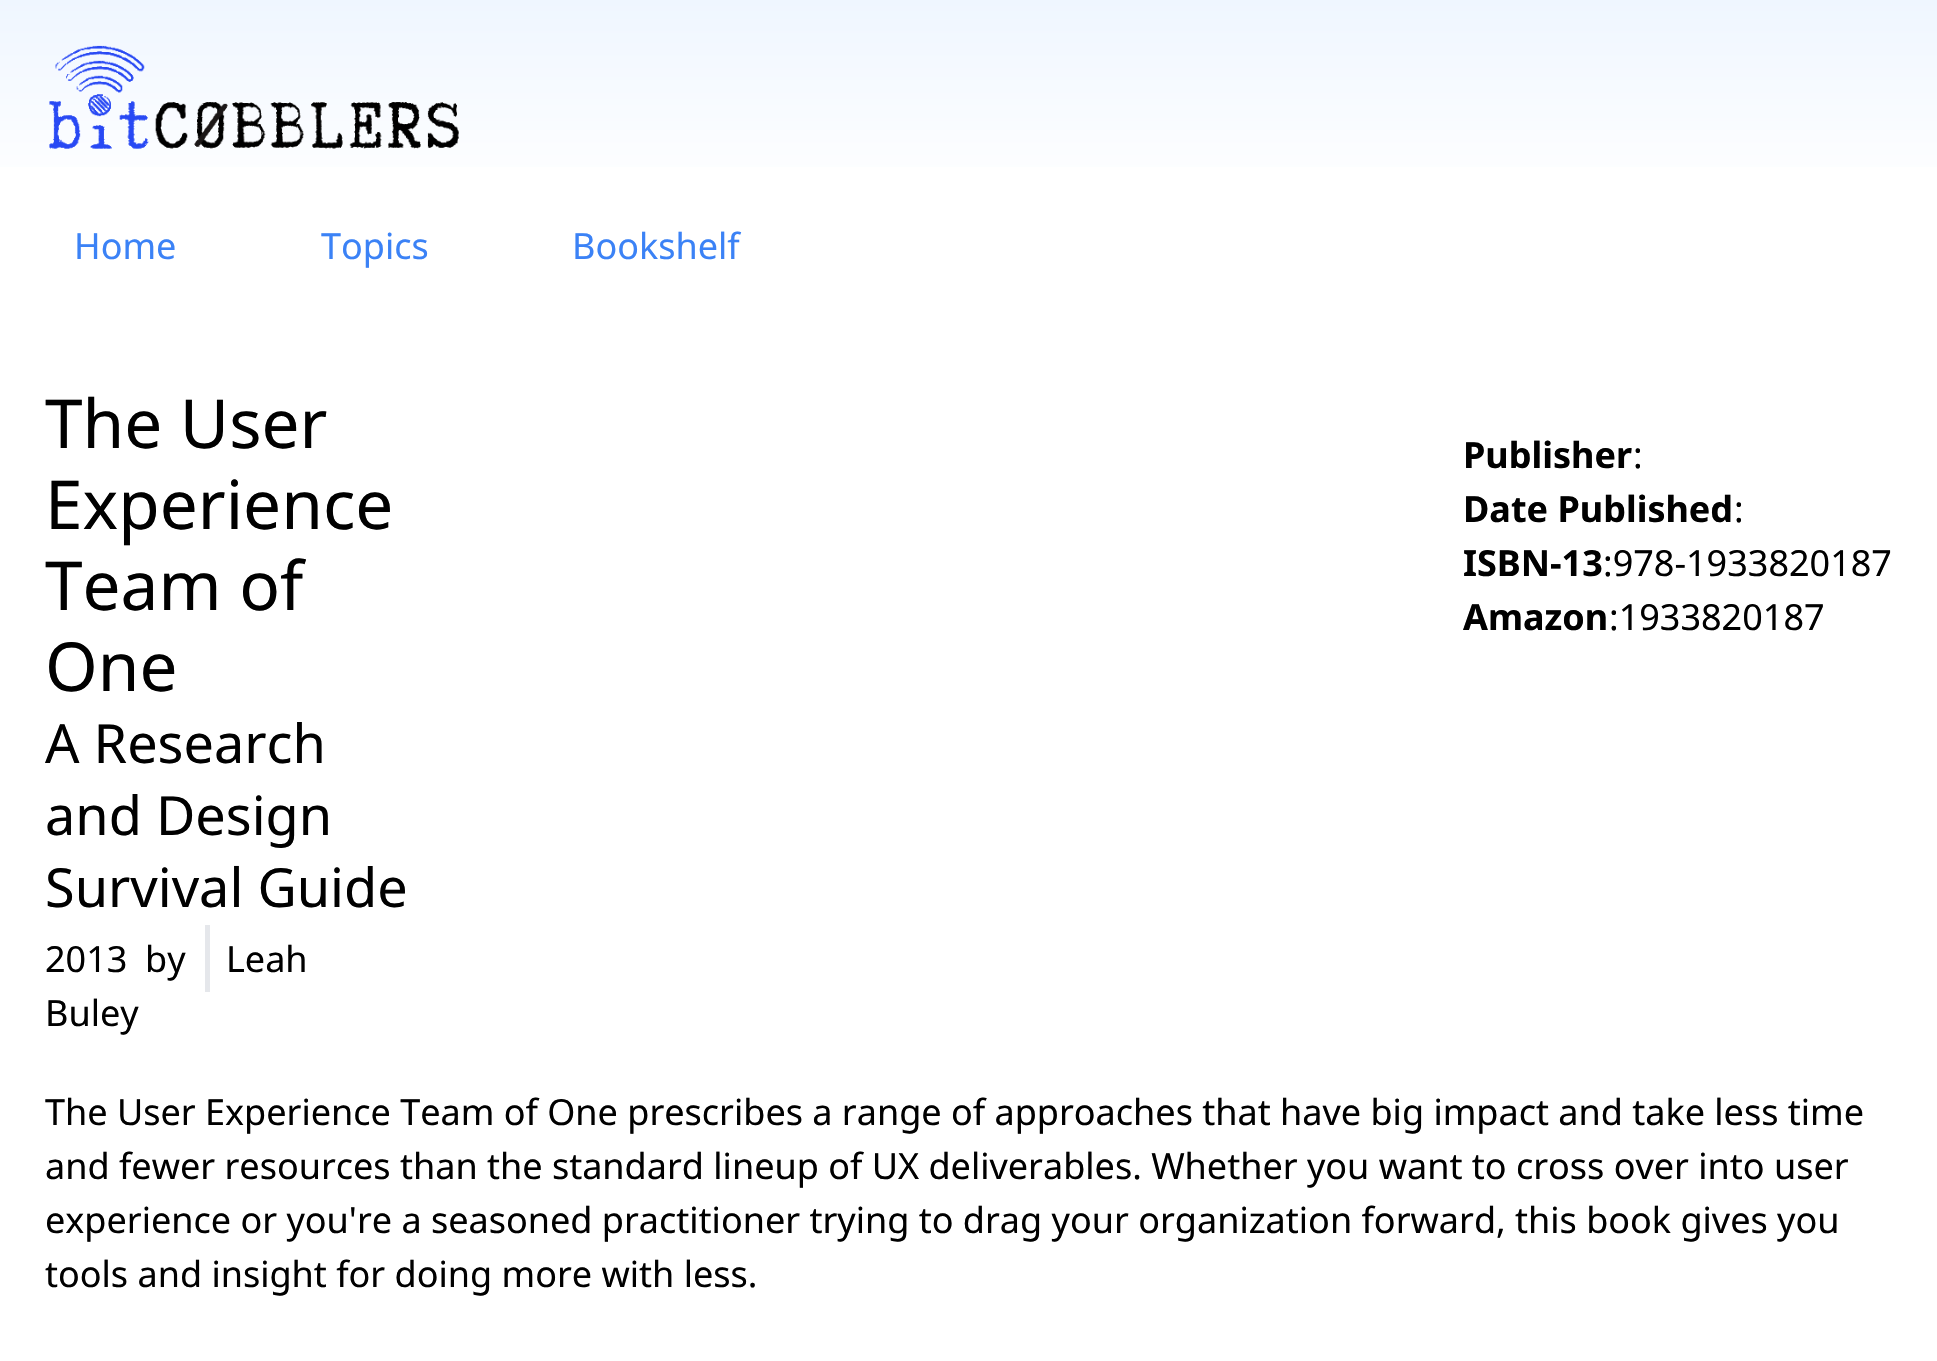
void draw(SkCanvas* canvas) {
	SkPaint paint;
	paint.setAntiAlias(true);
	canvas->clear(0xffffffff);
	{
		const SkColor colors[] = {0xffeff6ff, 0xffffffff};
		const float stops[] = {0, 1};
		const SkPoint ends[] = {{969, 0}, {969, 198}};
		paint.setShader(SkGradientShader::MakeLinear(ends, colors, stops, 2, SkTileMode::kClamp));
		paint.setAlpha(255);
	}
	canvas->drawRect(SkRect::MakeXYWH(0, 0, 1937, 167), paint);
	canvas->drawImageRect(SkImages::DeferredFromEncodedData(SkData::MakeFromFileName("img1.png")), SkRect::MakeXYWH(49, 45, 410, 104), SkSamplingOptions());
	SkFont f1(fontMgr->matchFamilyStyle("Noto Sans", SkFontStyle::Normal()), 36);
	f1.setSubpixel(true);
	paint.setShader(nullptr);
	paint.setColor(0xff3b82f6);
	canvas->drawString("Home", 74, 259, f1, paint);
	canvas->drawString("Topics", 321, 259, f1, paint);
	canvas->drawString("Bookshelf", 572, 259, f1, paint);
	SkFont f2(fontMgr->matchFamilyStyle("Noto Sans", SkFontStyle::Normal()), 67.5);
	f2.setSubpixel(true);
	paint.setColor(0xff000000);
	canvas->drawString("The User", 45, 448, f2, paint);
	canvas->drawString("Experience", 45, 529, f2, paint);
	canvas->drawString("Team of", 45, 610, f2, paint);
	canvas->drawString("One", 45, 691, f2, paint);
	SkFont f3(fontMgr->matchFamilyStyle("Noto Sans", SkFontStyle::Normal()), 54);
	f3.setSubpixel(true);
	canvas->drawString("A Research", 45, 763, f3, paint);
	canvas->drawString("and Design", 45, 835, f3, paint);
	canvas->drawString("Survival Guide", 45, 907, f3, paint);
	canvas->drawString("2013", 45, 972, f1, paint);
	canvas->drawString("by", 145, 972, f1, paint);
	canvas->drawString("Leah", 226, 972, f1, paint);
	paint.setColor(0xffe5e7eb);
	canvas->drawRect(SkRect::MakeXYWH(205, 925, 5, 67), paint);
	paint.setColor(0xff000000);
	canvas->drawString("Buley", 45, 1026, f1, paint);
	SkFont f4(fontMgr->matchFamilyStyle("Noto Sans", SkFontStyle::Bold()), 36);
	f4.setSubpixel(true);
	canvas->drawString("Publisher", 1463, 468, f4, paint);
	canvas->drawString(":", 1633, 468, f1, paint);
	canvas->drawString("Date Published", 1463, 522, f4, paint);
	canvas->drawString(":", 1734, 522, f1, paint);
	canvas->drawString("ISBN-13", 1463, 576, f4, paint);
	canvas->drawString(":978-1933820187", 1603, 576, f1, paint);
	canvas->drawString("Amazon", 1463, 630, f4, paint);
	canvas->drawString(":1933820187", 1609, 630, f1, paint);
	canvas->drawString("The User Experience Team of One prescribes a range of approaches that have big impact and take less time", 45, 1125, f1, paint);
	canvas->drawString("and fewer resources than the standard lineup of UX deliverables. Whether you want to cross over into user", 45, 1179, f1, paint);
	canvas->drawString("experience or you're a seasoned practitioner trying to drag your organization forward, this book gives you", 45, 1233, f1, paint);
	canvas->drawString("tools and insight for doing more with less.", 45, 1287, f1, paint);
}
